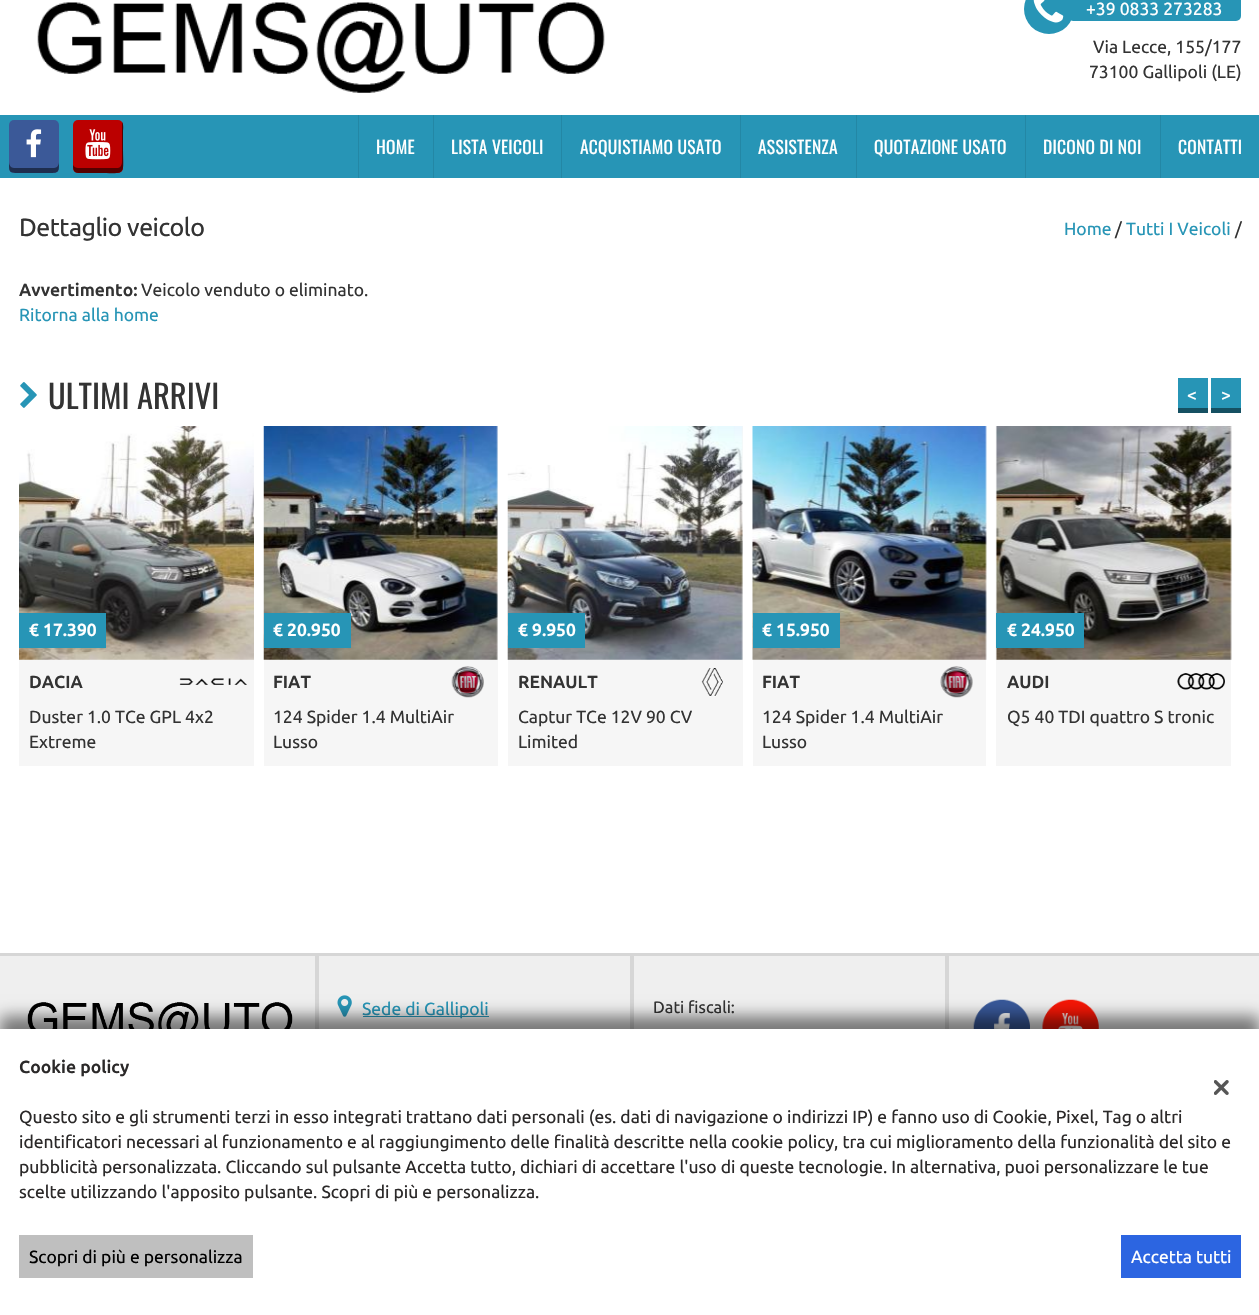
void draw(SkCanvas* canvas) {
	SkPaint paint;
	paint.setAntiAlias(true);
	auto spacedText = [&](const char* s, float x, float y, const SkFont& font, const SkPaint& ink, float letter, float word) {
		std::vector<SkGlyphID> glyphs(font.countText(s, strlen(s), SkTextEncoding::kUTF8));
		std::vector<float> xs(glyphs.size());
		font.textToGlyphs(s, strlen(s), SkTextEncoding::kUTF8, glyphs);
		font.getXPos(glyphs, xs, x);
		float extra = 0;
		for (size_t i = 0; i < glyphs.size(); i++) {
			xs[i] += extra;
			extra += letter + word * (glyphs[i] == font.unicharToGlyph(' '));
		}
		canvas->drawTextBlob(SkTextBlob::MakeFromPosHGlyphs(glyphs, xs, y, font), 0, 0, ink);
	};
	auto svgPath = [&](const char* data, bool evenOdd = false) {
		SkPath result = *SkParsePath::FromSVGString(data);
		if (evenOdd) result.setFillType(SkPathFillType::kEvenOdd);
		return result;
	};
	canvas->clear(0xffffffff);
	canvas->drawImageRect(SkImages::DeferredFromEncodedData(SkData::MakeFromFileName("img1.png")), SkRect::MakeXYWH(37, 2, 568, 91), SkSamplingOptions());
	paint.setColor(0xff2795b6);
	canvas->drawCircle(1049, 9, 25, paint);
	canvas->drawImageRect(SkImages::DeferredFromEncodedData(SkData::MakeFromFileName("img2.png")), SkRect::MakeXYWH(1033, 0, 31, 23), SkSamplingOptions());
	canvas->drawRoundRect(SkRect::MakeXYWH(1068, -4, 173, 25), 5, 5, paint);
	SkFont f1(fontMgr->matchFamilyStyle("Ubuntu", SkFontStyle::Normal()), 17.5);
	f1.setSubpixel(true);
	paint.setColor(0xffffffff);
	canvas->drawString("+39 0833 273283", 1086, 15, f1, paint);
	paint.setColor(0xff333333);
	canvas->drawString("Via Lecce, 155/177", 1093, 53, f1, paint);
	canvas->drawString("73100 Gallipoli (LE)", 1089, 78, f1, paint);
	paint.setColor(0xff2795b6);
	canvas->drawRect(SkRect::MakeXYWH(0, 115, 1259, 63), paint);
	paint.setColor(0xff3b5998);
	canvas->drawRoundRect(SkRect::MakeXYWH(9, 120, 50, 53), 5, 5, paint);
	paint.setColor(0xff1e2e4f);
	canvas->drawPath(svgPath("M9 162C9 173 9 173 21 173H47C59 173 59 173 59 162C59 165 57 168 54 168H14C11 168 9 165 9 162Z"), paint);
	canvas->drawImageRect(SkImages::DeferredFromEncodedData(SkData::MakeFromFileName("img3.png")), SkRect::MakeXYWH(26, 129, 16, 29), SkSamplingOptions());
	paint.setColor(0xffbb0000);
	canvas->drawRoundRect(SkRect::MakeXYWH(73, 120, 50, 53), 5, 5, paint);
	paint.setColor(0xff550000);
	canvas->drawPath(svgPath("M73 165C73 174 76 173 85 173H98C128 173 123 177 123 146V132C123 130 124 125 122 122V162C122 165 120 168 118 168H78C76 168 74 167 73 165Z"), paint);
	canvas->drawImageRect(SkImages::DeferredFromEncodedData(SkData::MakeFromFileName("img4.png")), SkRect::MakeXYWH(85, 129, 26, 31), SkSamplingOptions());
	paint.setColor(0xff2387a5);
	canvas->drawRect(SkRect::MakeXYWH(358, 115, 1, 63), paint);
	SkFont f2(fontMgr->matchFamilyStyle("Oswald", SkFontStyle::Normal()), 17.5);
	f2.setSubpixel(true);
	paint.setColor(0xffffffff);
	spacedText("HOME", 376, 154, f2, paint, 0.25, 0);
	paint.setColor(0xff2387a5);
	canvas->drawRect(SkRect::MakeXYWH(433, 115, 1, 63), paint);
	paint.setColor(0xffffffff);
	spacedText("LISTA VEICOLI", 451, 154, f2, paint, 0.25, 0);
	paint.setColor(0xff2387a5);
	canvas->drawRect(SkRect::MakeXYWH(561, 115, 1, 63), paint);
	paint.setColor(0xffffffff);
	spacedText("ACQUISTIAMO USATO", 580, 154, f2, paint, 0.25, 0);
	paint.setColor(0xff2387a5);
	canvas->drawRect(SkRect::MakeXYWH(740, 115, 1, 63), paint);
	paint.setColor(0xffffffff);
	spacedText("ASSISTENZA", 758, 154, f2, paint, 0.25, 0);
	paint.setColor(0xff2387a5);
	canvas->drawRect(SkRect::MakeXYWH(856, 115, 1, 63), paint);
	paint.setColor(0xffffffff);
	spacedText("QUOTAZIONE USATO", 874, 154, f2, paint, 0.25, 0);
	paint.setColor(0xff2387a5);
	canvas->drawRect(SkRect::MakeXYWH(1025, 115, 1, 63), paint);
	paint.setColor(0xffffffff);
	spacedText("DICONO DI NOI", 1043, 154, f2, paint, 0.25, 0);
	paint.setColor(0xff2387a5);
	canvas->drawRect(SkRect::MakeXYWH(1160, 115, 1, 63), paint);
	paint.setColor(0xffffffff);
	spacedText("CONTATTI", 1178, 154, f2, paint, 0.25, 0);
	SkFont f3(fontMgr->matchFamilyStyle("Ubuntu", SkFontStyle::Normal()), 25);
	f3.setSubpixel(true);
	paint.setColor(0xff333333);
	spacedText("Dettaglio veicolo", 19, 236, f3, paint, -0.5, 0);
	paint.setColor(0xff2795b6);
	canvas->drawString("Home", 1064, 235, f1, paint);
	paint.setColor(0xff333333);
	canvas->drawString("/", 1115, 235, f1, paint);
	paint.setColor(0xff2795b6);
	canvas->drawString("Tutti I Veicoli", 1126, 235, f1, paint);
	paint.setColor(0xff333333);
	canvas->drawString("/", 1235, 235, f1, paint);
	SkFont f4(fontMgr->matchFamilyStyle("Ubuntu", SkFontStyle::Bold()), 17.5);
	f4.setSubpixel(true);
	canvas->drawString("Avvertimento:", 19, 296, f4, paint);
	canvas->drawString("Veicolo venduto o eliminato.", 141, 296, f1, paint);
	paint.setColor(0xff2795b6);
	canvas->drawString("Ritorna alla home", 19, 321, f1, paint);
	canvas->drawImageRect(SkImages::DeferredFromEncodedData(SkData::MakeFromFileName("img5.png")), SkRect::MakeXYWH(20, 382, 17, 26), SkSamplingOptions());
	SkFont f5(fontMgr->matchFamilyStyle("Oswald", SkFontStyle::Normal()), 32.5);
	f5.setSubpixel(true);
	paint.setColor(0xff333333);
	canvas->drawString("ULTIMI ARRIVI", 48, 409, f5, paint);
	paint.setColor(0xff2795b6);
	canvas->drawRect(SkRect::MakeXYWH(1178, 378, 30, 30), paint);
	paint.setColor(0xff155062);
	canvas->drawRect(SkRect::MakeXYWH(1178, 408, 30, 5), paint);
	paint.setColor(0xffffffff);
	canvas->drawString("<", 1187, 401, f1, paint);
	paint.setColor(0xff2795b6);
	canvas->drawRect(SkRect::MakeXYWH(1211, 378, 30, 30), paint);
	paint.setColor(0xff155062);
	canvas->drawRect(SkRect::MakeXYWH(1211, 408, 30, 5), paint);
	paint.setColor(0xffffffff);
	canvas->drawString(">", 1221, 401, f1, paint);
	paint.setColor(0xfff6f6f6);
	canvas->drawRect(SkRect::MakeXYWH(19, 659, 235, 107), paint);
	canvas->drawImageRect(SkImages::DeferredFromEncodedData(SkData::MakeFromFileName("img6.png")), SkRect::MakeXYWH(19, 426, 235, 234), SkSamplingOptions());
	paint.setColor(0xff2795b6);
	canvas->drawRect(SkRect::MakeXYWH(19, 613, 87, 35), paint);
	paint.setColor(0xffffffff);
	canvas->drawString("€ 17.390", 29, 636, f4, paint);
	paint.setColor(0xff333333);
	canvas->drawString("DACIA", 29, 688, f4, paint);
	canvas->drawImageRect(SkImages::DeferredFromEncodedData(SkData::MakeFromFileName("img7.png")), SkRect::MakeXYWH(179, 678, 68, 7), SkSamplingOptions());
	canvas->drawString("Duster 1.0 TCe GPL 4x2", 29, 723, f1, paint);
	canvas->drawString("Extreme", 29, 748, f1, paint);
	paint.setColor(0xfff6f6f6);
	canvas->drawRect(SkRect::MakeXYWH(264, 426, 234, 340), paint);
	canvas->drawImageRect(SkImages::DeferredFromEncodedData(SkData::MakeFromFileName("img8.png")), SkRect::MakeXYWH(263, 426, 235, 234), SkSamplingOptions());
	paint.setColor(0xff2795b6);
	canvas->drawRect(SkRect::MakeXYWH(264, 613, 87, 35), paint);
	paint.setColor(0xffffffff);
	canvas->drawString("€ 20.950", 273, 636, f4, paint);
	paint.setColor(0xff333333);
	canvas->drawString("FIAT", 273, 688, f4, paint);
	canvas->drawImageRect(SkImages::DeferredFromEncodedData(SkData::MakeFromFileName("img9.png")), SkRect::MakeXYWH(451, 666, 33, 32), SkSamplingOptions());
	canvas->drawString("124 Spider 1.4 MultiAir", 273, 723, f1, paint);
	canvas->drawString("Lusso", 273, 748, f1, paint);
	paint.setColor(0xfff6f6f6);
	canvas->drawRect(SkRect::MakeXYWH(508, 426, 235, 340), paint);
	canvas->drawImageRect(SkImages::DeferredFromEncodedData(SkData::MakeFromFileName("img10.png")), SkRect::MakeXYWH(507, 426, 236, 234), SkSamplingOptions());
	paint.setColor(0xff2795b6);
	canvas->drawRect(SkRect::MakeXYWH(508, 613, 77, 35), paint);
	paint.setColor(0xffffffff);
	canvas->drawString("€ 9.950", 518, 636, f4, paint);
	paint.setColor(0xff333333);
	canvas->drawString("RENAULT", 518, 688, f4, paint);
	canvas->drawImageRect(SkImages::DeferredFromEncodedData(SkData::MakeFromFileName("img11.png")), SkRect::MakeXYWH(701, 668, 22, 29), SkSamplingOptions());
	canvas->drawString("Captur TCe 12V 90 CV", 518, 723, f1, paint);
	canvas->drawString("Limited", 518, 748, f1, paint);
	paint.setColor(0xfff6f6f6);
	canvas->drawRect(SkRect::MakeXYWH(753, 426, 233, 340), paint);
	canvas->drawImageRect(SkImages::DeferredFromEncodedData(SkData::MakeFromFileName("img12.png")), SkRect::MakeXYWH(752, 426, 235, 234), SkSamplingOptions());
	paint.setColor(0xff2795b6);
	canvas->drawRect(SkRect::MakeXYWH(753, 613, 87, 35), paint);
	paint.setColor(0xffffffff);
	canvas->drawString("€ 15.950", 762, 636, f4, paint);
	paint.setColor(0xff333333);
	canvas->drawString("FIAT", 762, 688, f4, paint);
	canvas->drawImageRect(SkImages::DeferredFromEncodedData(SkData::MakeFromFileName("img13.png")), SkRect::MakeXYWH(940, 666, 33, 32), SkSamplingOptions());
	canvas->drawString("124 Spider 1.4 MultiAir", 762, 723, f1, paint);
	canvas->drawString("Lusso", 762, 748, f1, paint);
	paint.setColor(0xfff6f6f6);
	canvas->drawRect(SkRect::MakeXYWH(996, 426, 235, 340), paint);
	canvas->drawImageRect(SkImages::DeferredFromEncodedData(SkData::MakeFromFileName("img14.png")), SkRect::MakeXYWH(995, 426, 237, 234), SkSamplingOptions());
	paint.setColor(0xff2795b6);
	canvas->drawRect(SkRect::MakeXYWH(996, 613, 88, 35), paint);
	paint.setColor(0xffffffff);
	canvas->drawString("€ 24.950", 1007, 636, f4, paint);
	paint.setColor(0xff333333);
	canvas->drawString("AUDI", 1007, 688, f4, paint);
	canvas->drawImageRect(SkImages::DeferredFromEncodedData(SkData::MakeFromFileName("img15.png")), SkRect::MakeXYWH(1177, 673, 48, 17), SkSamplingOptions());
	canvas->drawString("Q5 40 TDI quattro S tronic", 1007, 723, f1, paint);
	paint.setColor(0xffd6d6d6);
	canvas->drawRect(SkRect::MakeXYWH(0, 953, 1259, 3), paint);
	paint.setColor(0xffefefef);
	canvas->drawRect(SkRect::MakeXYWH(0, 956, 1259, 73), paint);
	canvas->drawImageRect(SkImages::DeferredFromEncodedData(SkData::MakeFromFileName("img16.png")), SkRect::MakeXYWH(27, 1002, 266, 27), SkSamplingOptions());
	paint.setColor(0xffd6d6d6);
	canvas->drawRect(SkRect::MakeXYWH(315, 956, 4, 73), paint);
	canvas->drawImageRect(SkImages::DeferredFromEncodedData(SkData::MakeFromFileName("img17.png")), SkRect::MakeXYWH(337, 995, 15, 22), SkSamplingOptions());
	paint.setColor(0xff2795b6);
	canvas->drawRect(SkRect::MakeXYWH(363, 1016, 126, 1), paint);
	canvas->drawString("Sede di Gallipoli", 362, 1015, f1, paint);
	paint.setColor(0xffd6d6d6);
	canvas->drawRect(SkRect::MakeXYWH(630, 956, 4, 73), paint);
	SkFont f6(fontMgr->matchFamilyStyle("Ubuntu", SkFontStyle::Normal()), 16.5);
	f6.setSubpixel(true);
	paint.setColor(0xff333333);
	canvas->drawString("Dati fiscali:", 653, 1013, f6, paint);
	paint.setColor(0xffd6d6d6);
	canvas->drawRect(SkRect::MakeXYWH(945, 956, 4, 73), paint);
	canvas->drawImageRect(SkImages::DeferredFromEncodedData(SkData::MakeFromFileName("img18.png")), SkRect::MakeXYWH(973, 999, 57, 30), SkSamplingOptions());
	canvas->drawImageRect(SkImages::DeferredFromEncodedData(SkData::MakeFromFileName("img19.png")), SkRect::MakeXYWH(1042, 999, 57, 30), SkSamplingOptions());
	paint.setColor(0x80000000);
	paint.setMaskFilter(SkMaskFilter::MakeBlur(kNormal_SkBlurStyle, 7.5));
	canvas->drawRect(SkRect::MakeXYWH(0, 1016, 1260, 287), paint);
	paint.setMaskFilter(nullptr);
	paint.setColor(0xffffffff);
	canvas->drawRect(SkRect::MakeXYWH(0, 1029, 1259, 286), paint);
	paint.setColor(0xff2b2929);
	canvas->drawString("Cookie policy", 19, 1073, f4, paint);
	canvas->drawString("Questo sito e gli strumenti terzi in esso integrati trattano dati personali (es. dati di navigazione o indirizzi IP) e fanno uso di Cookie, Pixel, Tag o altri", 19, 1123, f1, paint);
	canvas->drawString("identificatori necessari al funzionamento e al raggiungimento delle finalità descritte nella cookie policy, tra cui miglioramento della funzionalità del sito e", 19, 1148, f1, paint);
	canvas->drawString("pubblicità personalizzata. Cliccando sul pulsante Accetta tutto, dichiari di accettare l'uso di queste tecnologie. In alternativa, puoi personalizzare le tue", 19, 1173, f1, paint);
	canvas->drawString("scelte utilizzando l'apposito pulsante. Scopri di più e personalizza.", 19, 1198, f1, paint);
	paint.setColor(0xffbfbfbf);
	canvas->drawRect(SkRect::MakeXYWH(19, 1235, 234, 43), paint);
	paint.setColor(0xff000000);
	canvas->drawString("Scopri di più e personalizza", 29, 1263, f1, paint);
	paint.setColor(0xff2c65e1);
	canvas->drawRect(SkRect::MakeXYWH(1121, 1235, 120, 43), paint);
	paint.setColor(0xffffffff);
	canvas->drawString("Accetta tutti", 1131, 1263, f1, paint);
	canvas->drawImageRect(SkImages::DeferredFromEncodedData(SkData::MakeFromFileName("img20.png")), SkRect::MakeXYWH(1214, 1080, 15, 15), SkSamplingOptions());
}
